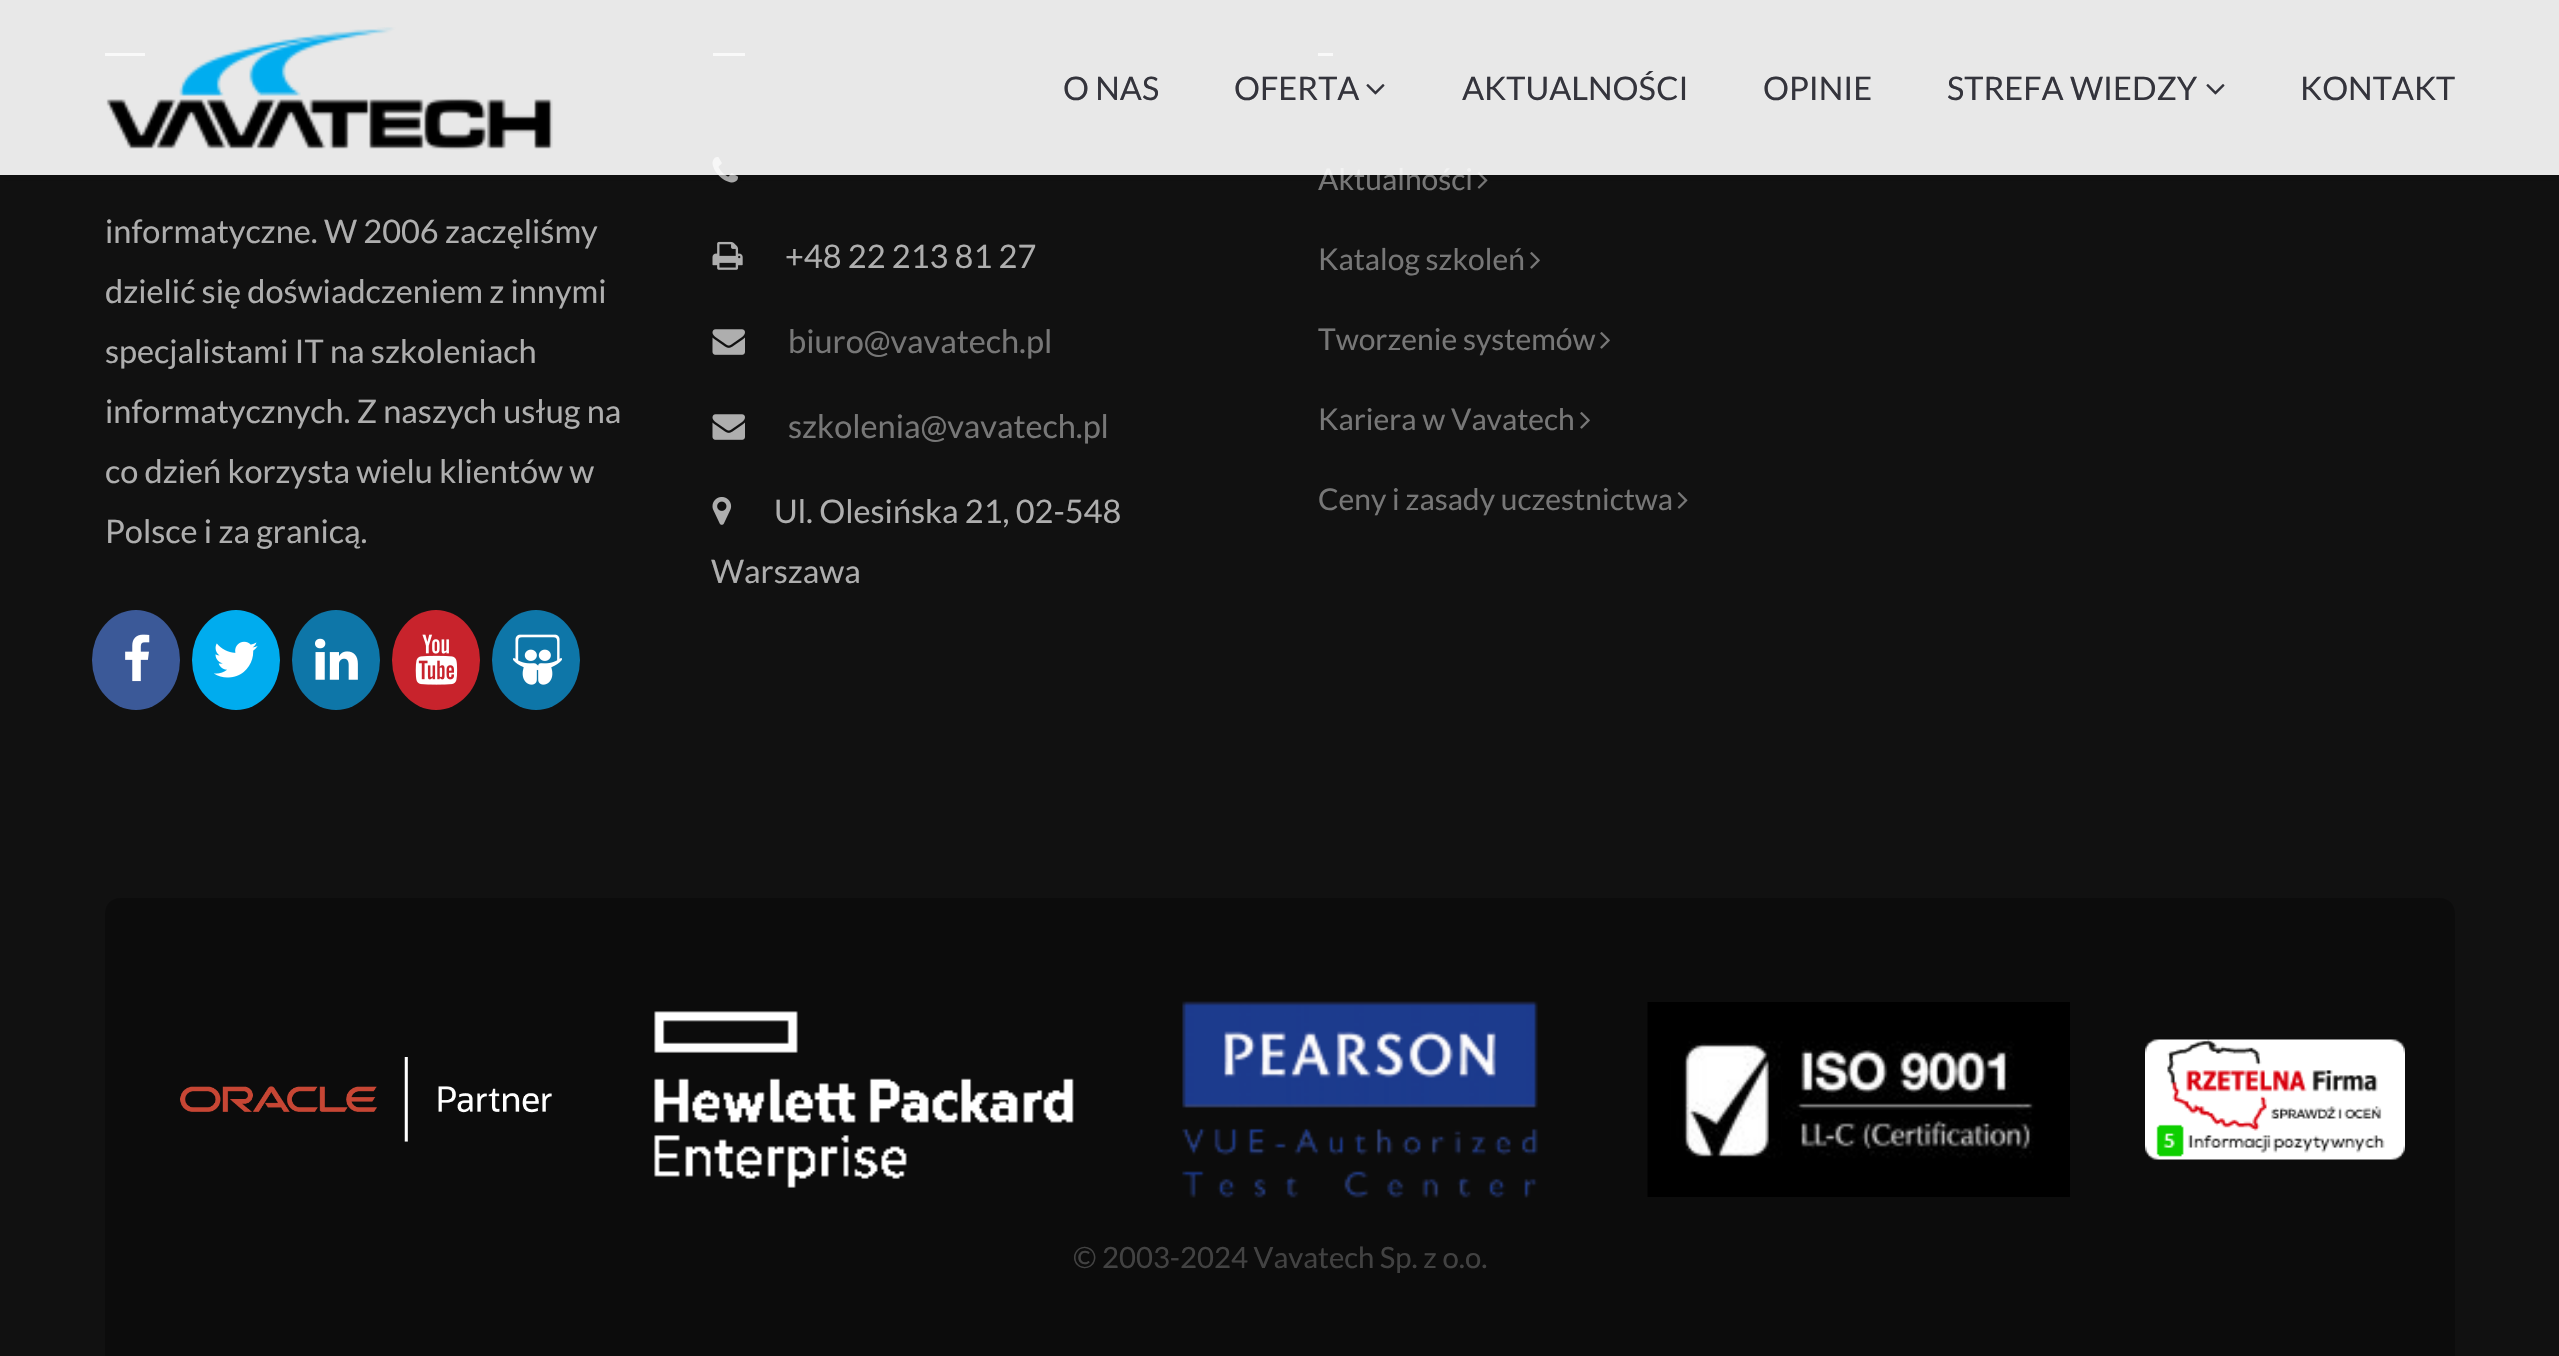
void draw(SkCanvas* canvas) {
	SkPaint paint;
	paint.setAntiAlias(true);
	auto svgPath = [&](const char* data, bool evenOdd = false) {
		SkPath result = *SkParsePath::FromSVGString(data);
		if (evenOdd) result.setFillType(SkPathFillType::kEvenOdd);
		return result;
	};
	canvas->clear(0xff111111);
	paint.setColor(0xffbbbbbb);
	canvas->drawRect(SkRect::MakeXYWH(105, 53, 40, 3), paint);
	canvas->drawRect(SkRect::MakeXYWH(713, 53, 32, 3), paint);
	canvas->drawImageRect(SkImages::DeferredFromEncodedData(SkData::MakeFromFileName("img8.png")), SkRect::MakeXYWH(712, 157, 26, 26), SkSamplingOptions());
	canvas->drawRect(SkRect::MakeXYWH(1318, 53, 15, 3), paint);
	canvas->drawImageRect(SkImages::DeferredFromEncodedData(SkData::MakeFromFileName("img12.png")), SkRect::MakeXYWH(1477, 172, 11, 17), SkSamplingOptions());
	canvas->save();
	canvas->clipRect(SkRect::MakeXYWH(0, 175, 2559, 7));
	paint.setColor(0x1f000000);
	paint.setMaskFilter(SkMaskFilter::MakeBlur(kNormal_SkBlurStyle, 4));
	canvas->drawRect(SkRect::MakeXYWH(0, 3, 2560, 175), paint);
	paint.setMaskFilter(nullptr);
	canvas->restore();
	SkFont f1(fontMgr->matchFamilyStyle("Lato", SkFontStyle::Normal()), 30);
	f1.setSubpixel(true);
	paint.setColor(0xff777777);
	canvas->drawString("Aktualności", 1318, 190, f1, paint);
	paint.setColor(0xe6ffffff);
	canvas->drawRect(SkRect::MakeXYWH(0, 0, 2559, 175), paint);
	canvas->drawImageRect(SkImages::DeferredFromEncodedData(SkData::MakeFromFileName("img1.png")), SkRect::MakeXYWH(106, 27, 447, 123), SkSamplingOptions());
	SkFont f2(fontMgr->matchFamilyStyle("Lato", SkFontStyle::Normal()), 32.5);
	f2.setSubpixel(true);
	paint.setColor(0xff34343c);
	canvas->drawString("O NAS", 1063, 100, f2, paint);
	canvas->drawString("OFERTA", 1234, 100, f2, paint);
	canvas->drawImageRect(SkImages::DeferredFromEncodedData(SkData::MakeFromFileName("img2.png")), SkRect::MakeXYWH(1366, 84, 19, 11), SkSamplingOptions());
	canvas->drawString("AKTUALNOŚCI", 1462, 100, f2, paint);
	canvas->drawString("OPINIE", 1763, 100, f2, paint);
	canvas->drawString("STREFA WIEDZY", 1947, 100, f2, paint);
	canvas->drawImageRect(SkImages::DeferredFromEncodedData(SkData::MakeFromFileName("img2.png")), SkRect::MakeXYWH(2206, 84, 19, 11), SkSamplingOptions());
	canvas->drawString("KONTAKT", 2300, 100, f2, paint);
	paint.setColor(0xffaeaeae);
	canvas->drawString("informatyczne. W 2006 zaczęliśmy", 105, 243, f2, paint);
	canvas->drawString("dzielić się doświadczeniem z innymi", 105, 303, f2, paint);
	canvas->drawString("specjalistami IT na szkoleniach", 105, 363, f2, paint);
	canvas->drawString("informatycznych. Z naszych usług na", 105, 423, f2, paint);
	canvas->drawString("co dzień korzysta wielu klientów w", 105, 483, f2, paint);
	canvas->drawString("Polsce i za granicą.", 105, 543, f2, paint);
	paint.setColor(0xff3b5998);
	canvas->drawOval(SkRect::MakeXYWH(92, 610, 88, 100), paint);
	canvas->drawImageRect(SkImages::DeferredFromEncodedData(SkData::MakeFromFileName("img3.png")), SkRect::MakeXYWH(125, 634, 25, 48), SkSamplingOptions());
	paint.setColor(0xff00acee);
	canvas->drawOval(SkRect::MakeXYWH(192, 610, 88, 100), paint);
	canvas->drawImageRect(SkImages::DeferredFromEncodedData(SkData::MakeFromFileName("img4.png")), SkRect::MakeXYWH(214, 641, 44, 37), SkSamplingOptions());
	paint.setColor(0xff0e76a8);
	canvas->drawOval(SkRect::MakeXYWH(292, 610, 88, 100), paint);
	canvas->drawImageRect(SkImages::DeferredFromEncodedData(SkData::MakeFromFileName("img5.png")), SkRect::MakeXYWH(315, 638, 43, 42), SkSamplingOptions());
	paint.setColor(0xffc8232c);
	canvas->drawOval(SkRect::MakeXYWH(392, 610, 88, 100), paint);
	canvas->drawImageRect(SkImages::DeferredFromEncodedData(SkData::MakeFromFileName("img6.png")), SkRect::MakeXYWH(415, 634, 43, 51), SkSamplingOptions());
	paint.setColor(0xff0e76a8);
	canvas->drawOval(SkRect::MakeXYWH(492, 610, 88, 100), paint);
	canvas->drawImageRect(SkImages::DeferredFromEncodedData(SkData::MakeFromFileName("img7.png")), SkRect::MakeXYWH(513, 634, 49, 51), SkSamplingOptions());
	canvas->drawImageRect(SkImages::DeferredFromEncodedData(SkData::MakeFromFileName("img9.png")), SkRect::MakeXYWH(712, 241, 31, 29), SkSamplingOptions());
	paint.setColor(0xffaeaeae);
	canvas->drawString("+48 22 213 81 27", 785, 268, f2, paint);
	canvas->drawImageRect(SkImages::DeferredFromEncodedData(SkData::MakeFromFileName("img10.png")), SkRect::MakeXYWH(712, 329, 33, 26), SkSamplingOptions());
	paint.setColor(0xff777777);
	canvas->drawString("biuro@vavatech.pl", 788, 353, f2, paint);
	canvas->drawImageRect(SkImages::DeferredFromEncodedData(SkData::MakeFromFileName("img10.png")), SkRect::MakeXYWH(712, 414, 33, 26), SkSamplingOptions());
	canvas->drawString("szkolenia@vavatech.pl", 788, 438, f2, paint);
	canvas->drawImageRect(SkImages::DeferredFromEncodedData(SkData::MakeFromFileName("img11.png")), SkRect::MakeXYWH(712, 497, 20, 28), SkSamplingOptions());
	paint.setColor(0xffaeaeae);
	canvas->drawString("Ul. Olesińska 21, 02-548", 774, 523, f2, paint);
	canvas->drawString("Warszawa", 711, 583, f2, paint);
	paint.setColor(0xff777777);
	canvas->drawString("Katalog szkoleń", 1318, 270, f1, paint);
	canvas->drawImageRect(SkImages::DeferredFromEncodedData(SkData::MakeFromFileName("img13.png")), SkRect::MakeXYWH(1530, 252, 10, 17), SkSamplingOptions());
	canvas->drawString("Tworzenie systemów", 1318, 350, f1, paint);
	canvas->drawImageRect(SkImages::DeferredFromEncodedData(SkData::MakeFromFileName("img13.png")), SkRect::MakeXYWH(1600, 332, 10, 17), SkSamplingOptions());
	canvas->drawString("Kariera w Vavatech", 1318, 430, f1, paint);
	canvas->drawImageRect(SkImages::DeferredFromEncodedData(SkData::MakeFromFileName("img13.png")), SkRect::MakeXYWH(1580, 412, 10, 17), SkSamplingOptions());
	canvas->drawString("Ceny i zasady uczestnictwa", 1318, 510, f1, paint);
	canvas->drawImageRect(SkImages::DeferredFromEncodedData(SkData::MakeFromFileName("img12.png")), SkRect::MakeXYWH(1677, 492, 11, 17), SkSamplingOptions());
	paint.setColor(0xff0c0c0c);
	canvas->drawPath(svgPath("M120 898H2440C2448.5 898 2455 904.5 2455 913V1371H105V913C105 904.5 111.5 898 120 898Z"), paint);
	canvas->drawImageRect(SkImages::DeferredFromEncodedData(SkData::MakeFromFileName("img14.png")), SkRect::MakeXYWH(180, 1057, 372, 85), SkSamplingOptions());
	canvas->drawImageRect(SkImages::DeferredFromEncodedData(SkData::MakeFromFileName("img15.png")), SkRect::MakeXYWH(654, 1011, 420, 177), SkSamplingOptions());
	canvas->drawImageRect(SkImages::DeferredFromEncodedData(SkData::MakeFromFileName("img16.png")), SkRect::MakeXYWH(1182, 1001, 356, 197), SkSamplingOptions());
	canvas->drawImageRect(SkImages::DeferredFromEncodedData(SkData::MakeFromFileName("img17.png")), SkRect::MakeXYWH(1647, 1002, 423, 195), SkSamplingOptions());
	canvas->drawImageRect(SkImages::DeferredFromEncodedData(SkData::MakeFromFileName("img18.png")), SkRect::MakeXYWH(2145, 1039, 260, 121), SkSamplingOptions());
	SkFont f3(fontMgr->matchFamilyStyle("Lato", SkFontStyle::Normal()), 29.25);
	f3.setSubpixel(true);
	paint.setColor(0xff424242);
	canvas->drawString("© 2003-2024 Vavatech Sp. z o.o.", 1073, 1268, f3, paint);
}
